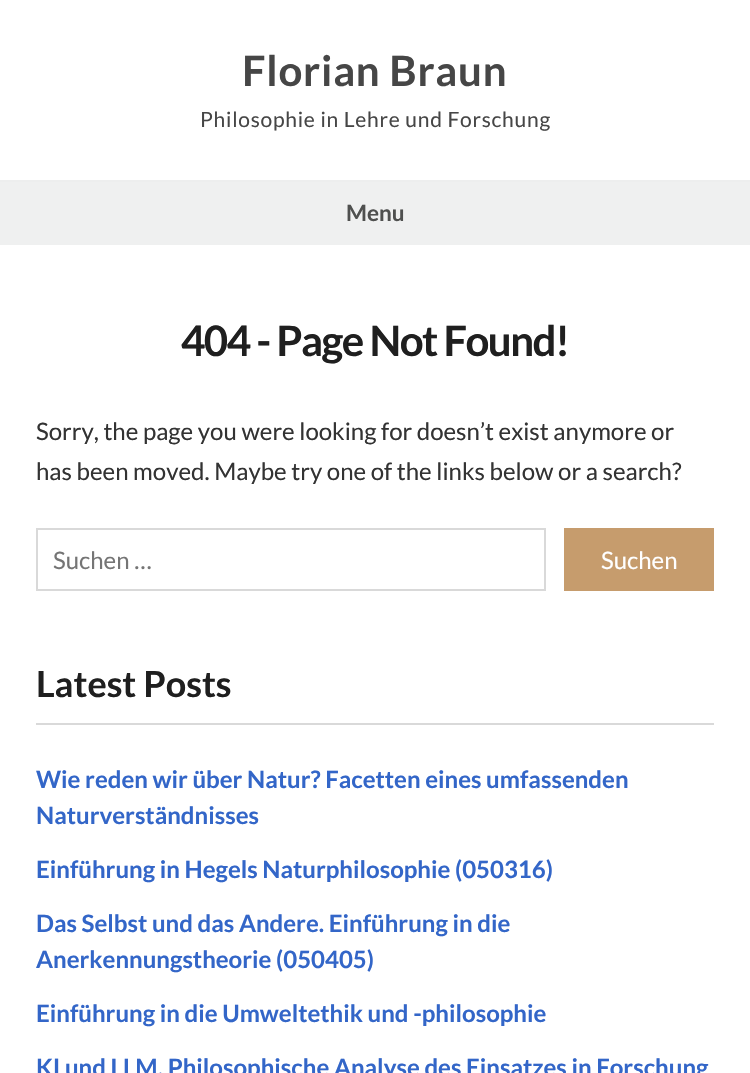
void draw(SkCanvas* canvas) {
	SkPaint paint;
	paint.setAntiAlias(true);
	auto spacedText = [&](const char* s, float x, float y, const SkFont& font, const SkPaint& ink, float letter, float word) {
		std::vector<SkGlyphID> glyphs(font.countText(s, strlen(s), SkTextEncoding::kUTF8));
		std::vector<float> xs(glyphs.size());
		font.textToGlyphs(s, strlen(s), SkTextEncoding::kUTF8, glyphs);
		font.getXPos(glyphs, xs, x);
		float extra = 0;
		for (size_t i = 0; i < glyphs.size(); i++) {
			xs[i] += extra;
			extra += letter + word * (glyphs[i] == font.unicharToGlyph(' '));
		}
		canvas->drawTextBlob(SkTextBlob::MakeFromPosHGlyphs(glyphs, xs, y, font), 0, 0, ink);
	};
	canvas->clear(0xffffffff);
	SkFont f1(fontMgr->matchFamilyStyle("Lato", SkFontStyle::Bold()), 42);
	f1.setSubpixel(true);
	paint.setColor(0xff464646);
	spacedText("Florian Braun", 242, 86, f1, paint, 0.75, 0);
	SkFont f2(fontMgr->matchFamilyStyle("Lato", SkFontStyle::Normal()), 21);
	f2.setSubpixel(true);
	spacedText("Philosophie in Lehre und Forschung", 200, 127, f2, paint, 0.75, 0);
	paint.setColor(0xffedeeee);
	canvas->drawRect(SkRect::MakeXYWH(0, 180, 750, 2), paint);
	paint.setColor(0xffeff0f0);
	canvas->drawRect(SkRect::MakeXYWH(0, 182, 750, 63), paint);
	SkFont f3(fontMgr->matchFamilyStyle("Lato", SkFontStyle::Bold()), 22.5);
	f3.setSubpixel(true);
	paint.setColor(0xff4f504f);
	canvas->drawString("Menu", 346, 221, f3, paint);
	paint.setColor(0xff1f1f1f);
	spacedText("404 - Page Not Found!", 181, 356, f1, paint, -1.5, 0);
	SkFont f4(fontMgr->matchFamilyStyle("Lato", SkFontStyle::Normal()), 24);
	f4.setSubpixel(true);
	paint.setColor(0xff333333);
	canvas->drawString("Sorry, the page you were looking for doesn’t exist anymore or", 36, 440, f4, paint);
	canvas->drawString("has been moved. Maybe try one of the links below or a search?", 36, 480, f4, paint);
	paint.setStroke(true);
	paint.setStrokeWidth(2);
	paint.setColor(0xffd9d9d9);
	canvas->drawRect(SkRect::MakeXYWH(37, 529, 508, 61), paint);
	paint.setStroke(false);
	paint.setColor(0xff757575);
	canvas->drawString("Suchen …", 53, 569, f4, paint);
	paint.setColor(0xffc69c6d);
	canvas->drawRect(SkRect::MakeXYWH(564, 528, 150, 63), paint);
	paint.setColor(0xffffffff);
	canvas->drawString("Suchen", 601, 569, f4, paint);
	paint.setColor(0xffd9d9d9);
	canvas->drawRect(SkRect::MakeXYWH(36, 723, 678, 2), paint);
	SkFont f5(fontMgr->matchFamilyStyle("Lato", SkFontStyle::Bold()), 36);
	f5.setSubpixel(true);
	paint.setColor(0xff1f1f1f);
	canvas->drawString("Latest Posts", 36, 697, f5, paint);
	SkFont f6(fontMgr->matchFamilyStyle("Lato", SkFontStyle::Bold()), 24);
	f6.setSubpixel(true);
	paint.setColor(0xff3366c8);
	canvas->drawString("Wie reden wir über Natur? Facetten eines umfassenden", 36, 788, f6, paint);
	canvas->drawString("Naturverständnisses", 36, 824, f6, paint);
	canvas->drawString("Einführung in Hegels Naturphilosophie (050316)", 36, 878, f6, paint);
	canvas->drawString("Das Selbst und das Andere. Einführung in die", 36, 932, f6, paint);
	canvas->drawString("Anerkennungstheorie (050405)", 36, 968, f6, paint);
	canvas->drawString("Einführung in die Umweltethik und -philosophie", 36, 1022, f6, paint);
	canvas->drawString("KI und LLM. Philosophische Analyse des Einsatzes in Forschung", 36, 1076, f6, paint);
}
